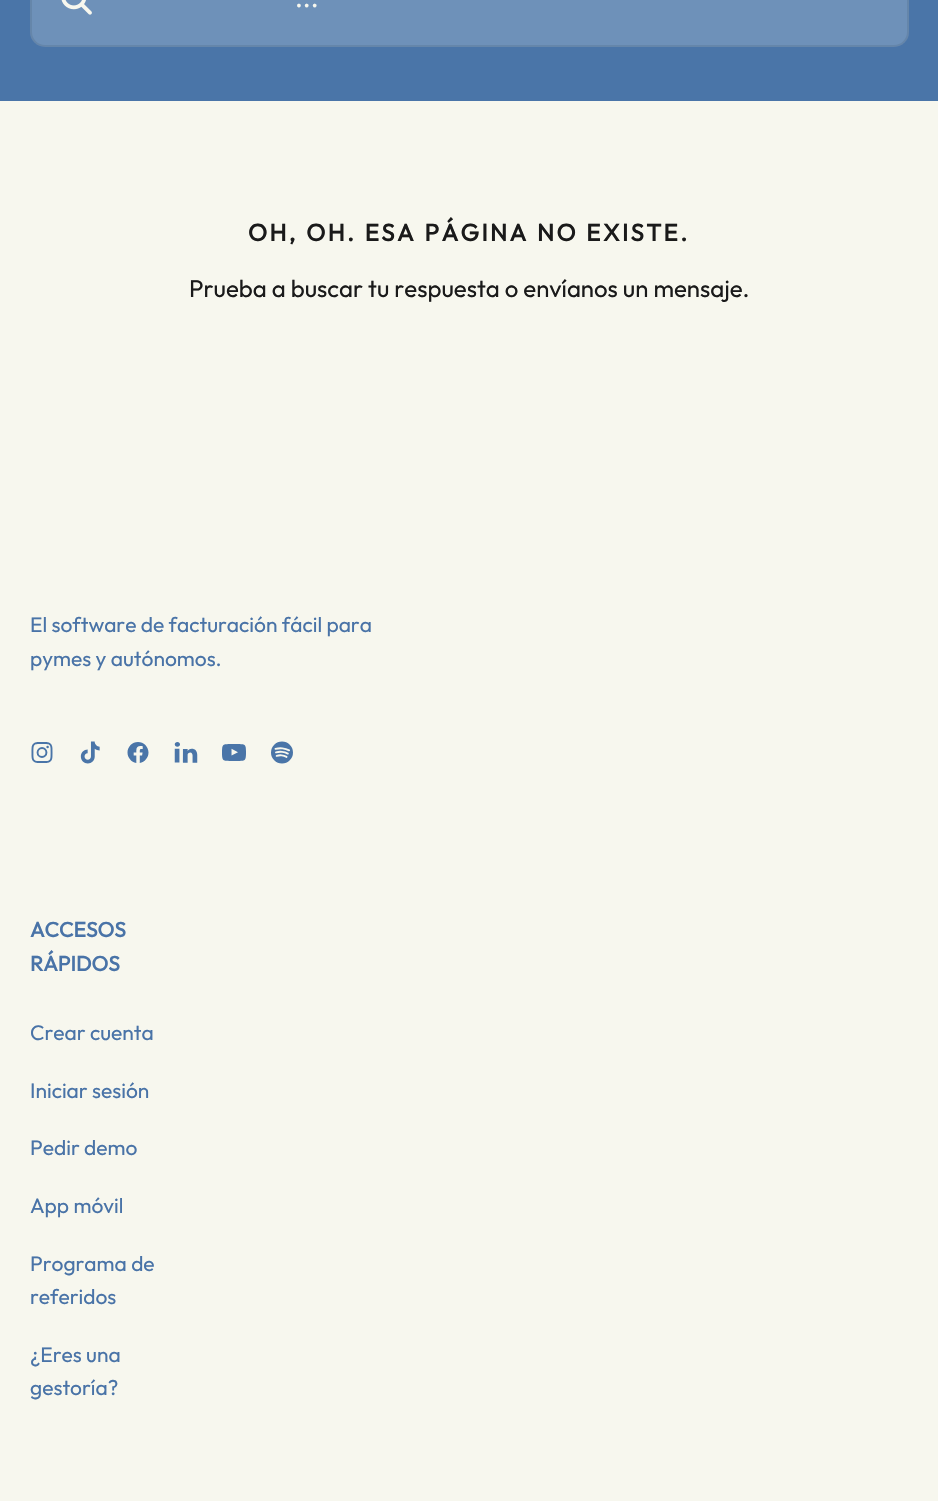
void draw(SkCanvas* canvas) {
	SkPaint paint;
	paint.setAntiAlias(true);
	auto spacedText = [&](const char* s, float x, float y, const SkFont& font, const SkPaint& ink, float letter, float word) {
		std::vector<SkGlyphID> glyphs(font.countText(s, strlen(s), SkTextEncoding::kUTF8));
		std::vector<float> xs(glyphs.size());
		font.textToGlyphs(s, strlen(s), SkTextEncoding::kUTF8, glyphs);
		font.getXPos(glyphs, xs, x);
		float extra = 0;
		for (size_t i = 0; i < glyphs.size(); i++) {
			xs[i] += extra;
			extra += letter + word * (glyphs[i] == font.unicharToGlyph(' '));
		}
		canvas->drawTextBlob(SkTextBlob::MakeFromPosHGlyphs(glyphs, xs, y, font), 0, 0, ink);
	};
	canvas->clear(0xfff7f7ee);
	paint.setColor(0xff4a75a8);
	canvas->drawRect(SkRect::MakeXYWH(0, 0, 938, 101), paint);
	paint.setColor(0x33ffffff);
	canvas->drawRoundRect(SkRect::MakeXYWH(30, -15, 879, 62), 15, 15, paint);
	paint.setStroke(true);
	paint.setStrokeWidth(2);
	paint.setColor(0x14000000);
	canvas->drawRoundRect(SkRect::MakeXYWH(31, -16, 877, 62), 14, 14, paint);
	canvas->drawImageRect(SkImages::DeferredFromEncodedData(SkData::MakeFromFileName("img1.png")), SkRect::MakeXYWH(61, 0, 31, 15), SkSamplingOptions());
	SkFont f1(fontMgr->matchFamilyStyle("Outfit", SkFontStyle::Normal()), 27);
	f1.setSubpixel(true);
	paint.setStroke(false);
	paint.setColor(0xfff7f7ee);
	canvas->drawString("...", 295, 7, f1, paint);
	SkFont f2(fontMgr->matchFamilyStyle("Outfit", SkFontStyle::Bold()), 24);
	f2.setSubpixel(true);
	paint.setColor(0xff1a1a1a);
	spacedText("OH, OH. ESA PÁGINA NO EXISTE.", 248, 241, f2, paint, 2.4, 1);
	SkFont f3(fontMgr->matchFamilyStyle("Outfit", SkFontStyle::Normal()), 24);
	f3.setSubpixel(true);
	canvas->drawString("Prueba a buscar tu respuesta o envíanos un mensaje.", 189, 297, f3, paint);
	SkFont f4(fontMgr->matchFamilyStyle("Outfit", SkFontStyle::Normal()), 21);
	f4.setSubpixel(true);
	paint.setColor(0xff4973a7);
	canvas->drawString("El software de facturación fácil para", 30, 632, f4, paint);
	canvas->drawString("pymes y autónomos.", 30, 666, f4, paint);
	canvas->drawImageRect(SkImages::DeferredFromEncodedData(SkData::MakeFromFileName("img2.png")), SkRect::MakeXYWH(31, 742, 22, 21), SkSamplingOptions());
	canvas->drawImageRect(SkImages::DeferredFromEncodedData(SkData::MakeFromFileName("img3.png")), SkRect::MakeXYWH(80, 741, 20, 23), SkSamplingOptions());
	canvas->drawImageRect(SkImages::DeferredFromEncodedData(SkData::MakeFromFileName("img4.png")), SkRect::MakeXYWH(127, 742, 22, 21), SkSamplingOptions());
	canvas->drawImageRect(SkImages::DeferredFromEncodedData(SkData::MakeFromFileName("img5.png")), SkRect::MakeXYWH(174, 742, 24, 21), SkSamplingOptions());
	canvas->drawImageRect(SkImages::DeferredFromEncodedData(SkData::MakeFromFileName("img6.png")), SkRect::MakeXYWH(222, 744, 24, 17), SkSamplingOptions());
	canvas->drawImageRect(SkImages::DeferredFromEncodedData(SkData::MakeFromFileName("img7.png")), SkRect::MakeXYWH(271, 741, 22, 23), SkSamplingOptions());
	SkFont f5(fontMgr->matchFamilyStyle("Outfit", SkFontStyle::Bold()), 21);
	f5.setSubpixel(true);
	canvas->drawString("ACCESOS", 30, 937, f5, paint);
	canvas->drawString("RÁPIDOS", 30, 971, f5, paint);
	canvas->drawString("Crear cuenta", 30, 1040, f4, paint);
	canvas->drawString("Iniciar sesión", 30, 1098, f4, paint);
	canvas->drawString("Pedir demo", 30, 1155, f4, paint);
	canvas->drawString("App móvil", 30, 1213, f4, paint);
	canvas->drawString("Programa de", 30, 1271, f4, paint);
	canvas->drawString("referidos", 30, 1304, f4, paint);
	canvas->drawString("¿Eres una", 30, 1362, f4, paint);
	canvas->drawString("gestoría?", 30, 1395, f4, paint);
}
